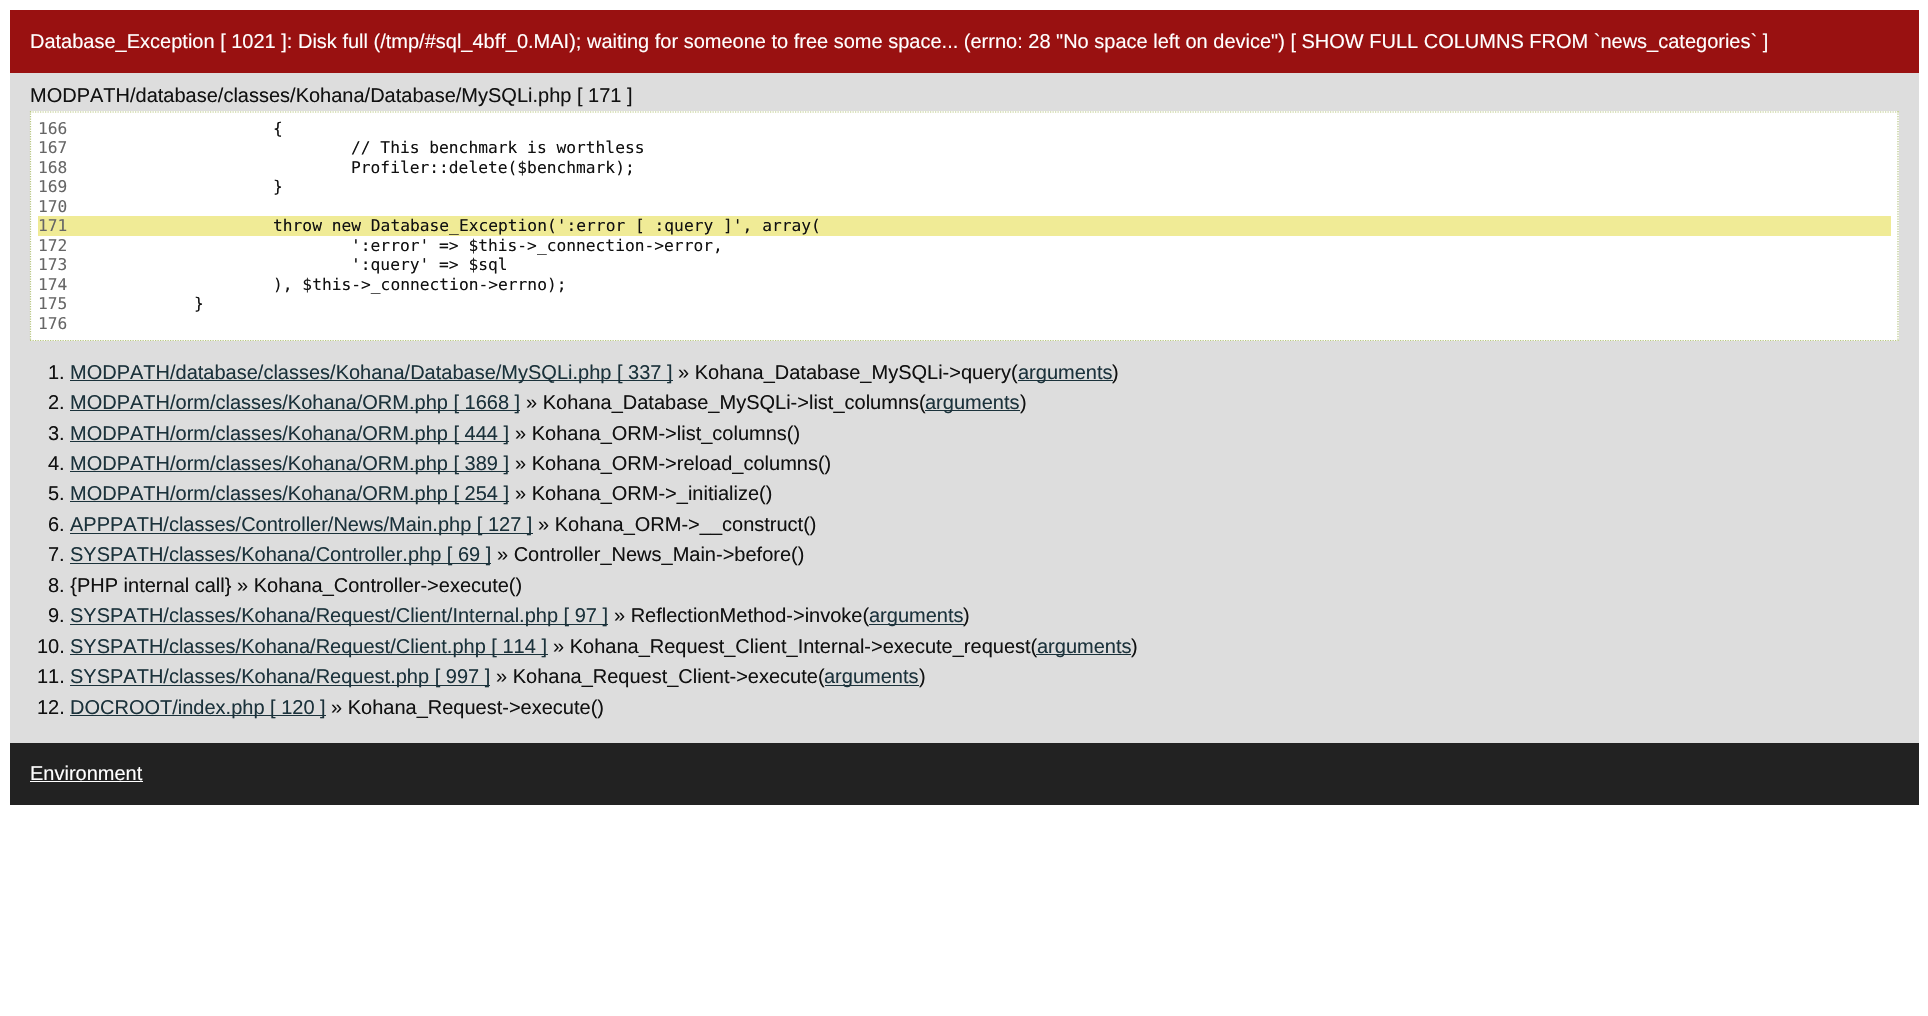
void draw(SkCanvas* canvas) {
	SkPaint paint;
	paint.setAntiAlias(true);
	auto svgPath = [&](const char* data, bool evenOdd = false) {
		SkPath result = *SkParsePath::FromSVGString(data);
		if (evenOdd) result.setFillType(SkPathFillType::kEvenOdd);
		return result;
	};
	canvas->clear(0xffffffff);
	paint.setColor(0xffdddddd);
	canvas->drawRect(SkRect::MakeXYWH(10, 73, 1909, 670), paint);
	paint.setColor(0xff991111);
	canvas->drawRect(SkRect::MakeXYWH(10, 10, 1909, 63), paint);
	SkFont f1(fontMgr->matchFamilyStyle("Liberation Sans", SkFontStyle::Normal()), 20);
	f1.setSubpixel(true);
	paint.setColor(0xffffffff);
	canvas->drawString("Database_Exception [ 1021 ]: Disk full (/tmp/#sql_4bff_0.MAI); waiting for someone to free some space... (errno: 28 \"No space left on device\") [ SHOW FULL COLUMNS FROM `news_categories` ]", 30, 48, f1, paint);
	paint.setColor(0xff111111);
	canvas->drawString("MODPATH/database/classes/Kohana/Database/MySQLi.php [ 171 ]", 30, 102, f1, paint);
	paint.setColor(0xffffffff);
	canvas->drawRect(SkRect::MakeXYWH(30, 111, 1869, 230), paint);
	paint.setStroke(true);
	paint.setStrokeWidth(1.2);
	paint.setColor(0xffb7c680);
	paint.setPathEffect(SkDashPathEffect::Make({{1.25f, 1.25f}}, 0));
	canvas->drawPath(svgPath("M30 112H1899"), paint);
	paint.setPathEffect(nullptr);
	paint.setPathEffect(SkDashPathEffect::Make({{1.25f, 1.25f}}, 0));
	canvas->drawPath(svgPath("M1898 111V341"), paint);
	paint.setPathEffect(nullptr);
	paint.setPathEffect(SkDashPathEffect::Make({{1.25f, 1.25f}}, 0));
	canvas->drawPath(svgPath("M30 340.5H1899"), paint);
	paint.setPathEffect(nullptr);
	paint.setPathEffect(SkDashPathEffect::Make({{1.25f, 1.25f}}, 0));
	canvas->drawPath(svgPath("M30.5 111V341"), paint);
	paint.setPathEffect(nullptr);
	SkFont f2(fontMgr->matchFamilyStyle("DejaVu Sans Mono", SkFontStyle::Normal()), 16.25);
	f2.setSubpixel(true);
	paint.setStroke(false);
	paint.setColor(0xff666666);
	canvas->drawString("166", 38, 134, f2, paint);
	paint.setColor(0xff111111);
	canvas->drawString("{", 273, 134, f2, paint);
	paint.setColor(0xff666666);
	canvas->drawString("167", 38, 153, f2, paint);
	paint.setColor(0xff111111);
	canvas->drawString("// This benchmark is worthless", 351, 153, f2, paint);
	paint.setColor(0xff666666);
	canvas->drawString("168", 38, 173, f2, paint);
	paint.setColor(0xff111111);
	canvas->drawString("Profiler::delete($benchmark);", 351, 173, f2, paint);
	paint.setColor(0xff666666);
	canvas->drawString("169", 38, 192, f2, paint);
	paint.setColor(0xff111111);
	canvas->drawString("}", 273, 192, f2, paint);
	paint.setColor(0xff666666);
	canvas->drawString("170", 38, 212, f2, paint);
	paint.setColor(0xfff0eb96);
	canvas->drawRect(SkRect::MakeXYWH(38, 216, 1853, 20), paint);
	paint.setColor(0xff666666);
	canvas->drawString("171", 38, 231, f2, paint);
	paint.setColor(0xff111111);
	canvas->drawString("throw new Database_Exception(':error [ :query ]', array(", 273, 231, f2, paint);
	paint.setColor(0xff666666);
	canvas->drawString("172", 38, 251, f2, paint);
	paint.setColor(0xff111111);
	canvas->drawString("':error' => $this->_connection->error,", 351, 251, f2, paint);
	paint.setColor(0xff666666);
	canvas->drawString("173", 38, 270, f2, paint);
	paint.setColor(0xff111111);
	canvas->drawString("':query' => $sql", 351, 270, f2, paint);
	paint.setColor(0xff666666);
	canvas->drawString("174", 38, 290, f2, paint);
	paint.setColor(0xff111111);
	canvas->drawString("), $this->_connection->errno);", 273, 290, f2, paint);
	paint.setColor(0xff666666);
	canvas->drawString("175", 38, 309, f2, paint);
	paint.setColor(0xff111111);
	canvas->drawString("}", 194, 309, f2, paint);
	paint.setColor(0xff666666);
	canvas->drawString("176", 38, 329, f2, paint);
	paint.setColor(0xff111111);
	canvas->drawString("1.", 48, 379, f1, paint);
	paint.setColor(0xff1b323b);
	canvas->drawRect(SkRect::MakeXYWH(70, 380, 603, 1), paint);
	canvas->drawString("MODPATH/database/classes/Kohana/Database/MySQLi.php [ 337 ]", 70, 379, f1, paint);
	paint.setColor(0xff111111);
	canvas->drawString("» Kohana_Database_MySQLi->query(", 678, 379, f1, paint);
	paint.setColor(0xff1b323b);
	canvas->drawRect(SkRect::MakeXYWH(1018, 380, 95, 1), paint);
	canvas->drawString("arguments", 1018, 379, f1, paint);
	paint.setColor(0xff111111);
	canvas->drawString(")", 1112, 379, f1, paint);
	canvas->drawString("2.", 48, 409, f1, paint);
	paint.setColor(0xff1b323b);
	canvas->drawRect(SkRect::MakeXYWH(70, 410, 450, 1), paint);
	canvas->drawString("MODPATH/orm/classes/Kohana/ORM.php [ 1668 ]", 70, 409, f1, paint);
	paint.setColor(0xff111111);
	canvas->drawString("» Kohana_Database_MySQLi->list_columns(", 526, 409, f1, paint);
	paint.setColor(0xff1b323b);
	canvas->drawRect(SkRect::MakeXYWH(925, 410, 95, 1), paint);
	canvas->drawString("arguments", 925, 409, f1, paint);
	paint.setColor(0xff111111);
	canvas->drawString(")", 1020, 409, f1, paint);
	canvas->drawString("3.", 48, 440, f1, paint);
	paint.setColor(0xff1b323b);
	canvas->drawRect(SkRect::MakeXYWH(70, 441, 439, 1), paint);
	canvas->drawString("MODPATH/orm/classes/Kohana/ORM.php [ 444 ]", 70, 440, f1, paint);
	paint.setColor(0xff111111);
	canvas->drawString("» Kohana_ORM->list_columns()", 515, 440, f1, paint);
	canvas->drawString("4.", 48, 470, f1, paint);
	paint.setColor(0xff1b323b);
	canvas->drawRect(SkRect::MakeXYWH(70, 471, 439, 1), paint);
	canvas->drawString("MODPATH/orm/classes/Kohana/ORM.php [ 389 ]", 70, 470, f1, paint);
	paint.setColor(0xff111111);
	canvas->drawString("» Kohana_ORM->reload_columns()", 515, 470, f1, paint);
	canvas->drawString("5.", 48, 500, f1, paint);
	paint.setColor(0xff1b323b);
	canvas->drawRect(SkRect::MakeXYWH(70, 501, 439, 1), paint);
	canvas->drawString("MODPATH/orm/classes/Kohana/ORM.php [ 254 ]", 70, 500, f1, paint);
	paint.setColor(0xff111111);
	canvas->drawString("» Kohana_ORM->_initialize()", 515, 500, f1, paint);
	canvas->drawString("6.", 48, 531, f1, paint);
	paint.setColor(0xff1b323b);
	canvas->drawRect(SkRect::MakeXYWH(70, 533, 463, 1), paint);
	canvas->drawString("APPPATH/classes/Controller/News/Main.php [ 127 ]", 70, 531, f1, paint);
	paint.setColor(0xff111111);
	canvas->drawString("» Kohana_ORM->__construct()", 538, 531, f1, paint);
	canvas->drawString("7.", 48, 561, f1, paint);
	paint.setColor(0xff1b323b);
	canvas->drawRect(SkRect::MakeXYWH(70, 563, 421, 1), paint);
	canvas->drawString("SYSPATH/classes/Kohana/Controller.php [ 69 ]", 70, 561, f1, paint);
	paint.setColor(0xff111111);
	canvas->drawString("» Controller_News_Main->before()", 497, 561, f1, paint);
	canvas->drawString("8. {PHP internal call} » Kohana_Controller->execute()", 48, 592, f1, paint);
	canvas->drawString("9.", 48, 622, f1, paint);
	paint.setColor(0xff1b323b);
	canvas->drawRect(SkRect::MakeXYWH(70, 624, 538, 1), paint);
	canvas->drawString("SYSPATH/classes/Kohana/Request/Client/Internal.php [ 97 ]", 70, 622, f1, paint);
	paint.setColor(0xff111111);
	canvas->drawString("» ReflectionMethod->invoke(", 614, 622, f1, paint);
	paint.setColor(0xff1b323b);
	canvas->drawRect(SkRect::MakeXYWH(869, 624, 95, 1), paint);
	canvas->drawString("arguments", 869, 622, f1, paint);
	paint.setColor(0xff111111);
	canvas->drawString(")", 963, 622, f1, paint);
	canvas->drawString("10.", 37, 653, f1, paint);
	paint.setColor(0xff1b323b);
	canvas->drawRect(SkRect::MakeXYWH(70, 654, 478, 1), paint);
	canvas->drawString("SYSPATH/classes/Kohana/Request/Client.php [ 114 ]", 70, 653, f1, paint);
	paint.setColor(0xff111111);
	canvas->drawString("» Kohana_Request_Client_Internal->execute_request(", 553, 653, f1, paint);
	paint.setColor(0xff1b323b);
	canvas->drawRect(SkRect::MakeXYWH(1036, 654, 95, 1), paint);
	canvas->drawString("arguments", 1037, 653, f1, paint);
	paint.setColor(0xff111111);
	canvas->drawString(")", 1131, 653, f1, paint);
	canvas->drawString("11.", 37, 683, f1, paint);
	paint.setColor(0xff1b323b);
	canvas->drawRect(SkRect::MakeXYWH(70, 685, 420, 1), paint);
	canvas->drawString("SYSPATH/classes/Kohana/Request.php [ 997 ]", 70, 683, f1, paint);
	paint.setColor(0xff111111);
	canvas->drawString("» Kohana_Request_Client->execute(", 496, 683, f1, paint);
	paint.setColor(0xff1b323b);
	canvas->drawRect(SkRect::MakeXYWH(825, 685, 94, 1), paint);
	canvas->drawString("arguments", 824, 683, f1, paint);
	paint.setColor(0xff111111);
	canvas->drawString(")", 919, 683, f1, paint);
	canvas->drawString("12.", 37, 714, f1, paint);
	paint.setColor(0xff1b323b);
	canvas->drawRect(SkRect::MakeXYWH(70, 715, 256, 1), paint);
	canvas->drawString("DOCROOT/index.php [ 120 ]", 70, 714, f1, paint);
	paint.setColor(0xff111111);
	canvas->drawString("» Kohana_Request->execute()", 331, 714, f1, paint);
	paint.setColor(0xff222222);
	canvas->drawRect(SkRect::MakeXYWH(10, 743, 1909, 62), paint);
	paint.setColor(0xffffffff);
	canvas->drawString("Environment", 30, 780, f1, paint);
	canvas->drawRect(SkRect::MakeXYWH(30, 781, 113, 1), paint);
}
